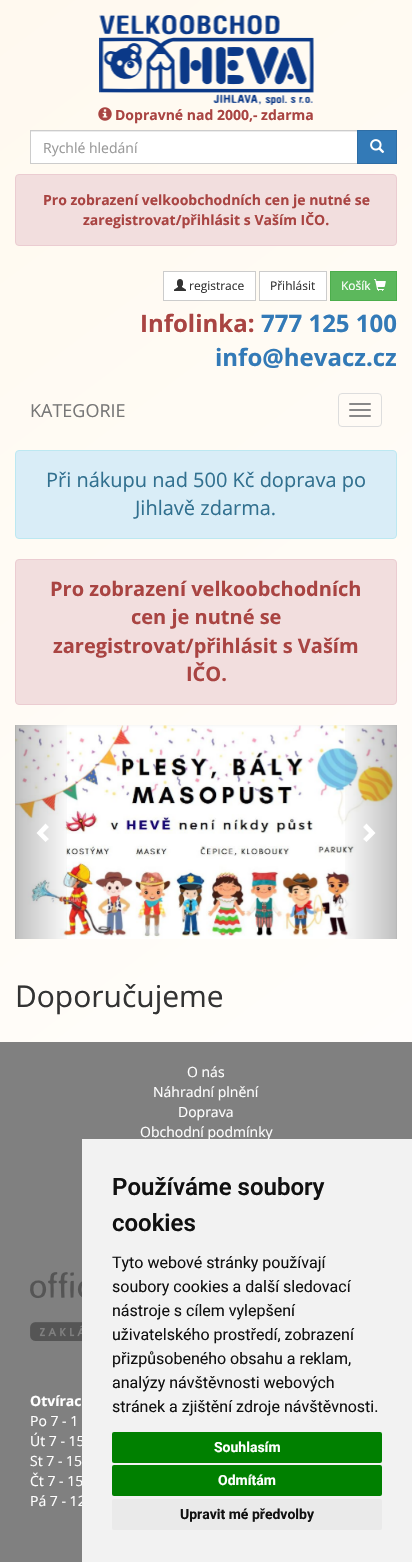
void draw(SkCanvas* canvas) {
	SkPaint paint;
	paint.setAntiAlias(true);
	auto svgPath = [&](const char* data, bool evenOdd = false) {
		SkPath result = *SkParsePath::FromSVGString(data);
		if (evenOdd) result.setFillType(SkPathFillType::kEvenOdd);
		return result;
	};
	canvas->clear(0xff808080);
	{
		const SkColor colors[] = {0xffffffff, 0xfffff9ef};
		const float stops[] = {0, 1};
		const SkPoint ends[] = {{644, 1336}, {-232, 175}};
		paint.setShader(SkGradientShader::MakeLinear(ends, colors, stops, 2, SkTileMode::kClamp));
		paint.setAlpha(255);
	}
	canvas->drawRect(SkRect::MakeXYWH(0, 0, 412, 1042), paint);
	canvas->drawImageRect(SkImages::DeferredFromEncodedData(SkData::MakeFromFileName("img1.png")), SkRect::MakeXYWH(99, 15, 215, 90), SkSamplingOptions());
	canvas->drawImageRect(SkImages::DeferredFromEncodedData(SkData::MakeFromFileName("img2.png")), SkRect::MakeXYWH(98, 107, 14, 14), SkSamplingOptions());
	SkFont f1(fontMgr->matchFamilyStyle("Open Sans", SkFontStyle::Bold()), 14);
	f1.setSubpixel(true);
	paint.setShader(nullptr);
	paint.setColor(0xffa94442);
	canvas->drawString("Dopravné nad 2000,- zdarma", 115, 120, f1, paint);
	paint.setColor(0xffffffff);
	canvas->drawPath(svgPath("M34 130H358V164H34C32 164 30 162 30 160V134C30 132 32 130 34 130Z"), paint);
	paint.setColor(0xffececec);
	canvas->drawRect(SkRect::MakeXYWH(31, 131, 326, 1), paint);
	paint.setStroke(true);
	paint.setStrokeWidth(1);
	paint.setColor(0xffcccccc);
	canvas->drawRect(SkRect::MakeXYWH(30.5, 130.5, 327, 33), paint);
	SkFont f2(fontMgr->matchFamilyStyle("Open Sans", SkFontStyle::Normal()), 14);
	f2.setSubpixel(true);
	paint.setStroke(false);
	paint.setColor(0xff999999);
	canvas->drawString("Rychlé hledání", 43, 153, f2, paint);
	paint.setColor(0xff337ab7);
	canvas->drawRect(SkRect::MakeXYWH(357.5, 130.5, 39, 33), paint);
	paint.setStroke(true);
	paint.setColor(0xff2e6da4);
	canvas->drawRect(SkRect::MakeXYWH(357.5, 130.5, 39, 33), paint);
	canvas->drawImageRect(SkImages::DeferredFromEncodedData(SkData::MakeFromFileName("img3.png")), SkRect::MakeXYWH(370, 139, 15, 14), SkSamplingOptions());
	paint.setStroke(false);
	paint.setColor(0xfff2dede);
	canvas->drawRoundRect(SkRect::MakeXYWH(15.5, 174.5, 381, 71), 3.5, 3.5, paint);
	paint.setStroke(true);
	paint.setColor(0xffebccd1);
	canvas->drawRoundRect(SkRect::MakeXYWH(15.5, 174.5, 381, 71), 3.5, 3.5, paint);
	paint.setStroke(false);
	paint.setColor(0xffa94442);
	canvas->drawString("Pro zobrazení velkoobchodních cen je nutné se", 43, 205, f1, paint);
	canvas->drawString("zaregistrovat/přihlásit s Vaším IČO.", 83, 225, f1, paint);
	paint.setColor(0xffffffff);
	canvas->drawRect(SkRect::MakeXYWH(163.5, 271.5, 92, 29), paint);
	paint.setStroke(true);
	paint.setColor(0xffcccccc);
	canvas->drawRect(SkRect::MakeXYWH(163.5, 271.5, 92, 29), paint);
	canvas->drawImageRect(SkImages::DeferredFromEncodedData(SkData::MakeFromFileName("img4.png")), SkRect::MakeXYWH(174, 279, 12, 12), SkSamplingOptions());
	SkFont f3(fontMgr->matchFamilyStyle("Open Sans", SkFontStyle::Normal()), 12);
	f3.setSubpixel(true);
	paint.setStroke(false);
	paint.setColor(0xff333333);
	canvas->drawString("registrace", 189, 290, f3, paint);
	paint.setColor(0xffffffff);
	canvas->drawRect(SkRect::MakeXYWH(259.5, 271.5, 67, 29), paint);
	paint.setStroke(true);
	paint.setColor(0xffcccccc);
	canvas->drawRect(SkRect::MakeXYWH(259.5, 271.5, 67, 29), paint);
	paint.setStroke(false);
	paint.setColor(0xff333333);
	canvas->drawString("Přihlásit", 270, 290, f3, paint);
	paint.setColor(0xff5cb85c);
	canvas->drawRect(SkRect::MakeXYWH(330.5, 271.5, 66, 29), paint);
	paint.setStroke(true);
	paint.setColor(0xff4cae4c);
	canvas->drawRect(SkRect::MakeXYWH(330.5, 271.5, 66, 29), paint);
	paint.setStroke(false);
	paint.setColor(0xffffffff);
	canvas->drawString("Košík", 341, 290, f3, paint);
	canvas->drawImageRect(SkImages::DeferredFromEncodedData(SkData::MakeFromFileName("img5.png")), SkRect::MakeXYWH(374, 279, 12, 12), SkSamplingOptions());
	SkFont f4(fontMgr->matchFamilyStyle("Open Sans", SkFontStyle::Bold()), 24);
	f4.setSubpixel(true);
	paint.setColor(0xffa94442);
	canvas->drawString("Infolinka:", 140, 332, f4, paint);
	paint.setColor(0xff337ab7);
	canvas->drawString("777 125 100", 261, 332, f4, paint);
	canvas->drawString("info@hevacz.cz", 215, 366, f4, paint);
	SkFont f5(fontMgr->matchFamilyStyle("Open Sans", SkFontStyle::Normal()), 18);
	f5.setSubpixel(true);
	paint.setColor(0xff777777);
	canvas->drawString("KATEGORIE", 30, 417, f5, paint);
	paint.setStroke(true);
	paint.setColor(0xffdddddd);
	canvas->drawRoundRect(SkRect::MakeXYWH(338.5, 393.5, 43, 33), 3.5, 3.5, paint);
	paint.setStroke(false);
	paint.setColor(0xff888888);
	canvas->drawRoundRect(SkRect::MakeXYWH(349, 403, 22, 2), 1, 1, paint);
	canvas->drawRoundRect(SkRect::MakeXYWH(349, 409, 22, 2), 1, 1, paint);
	canvas->drawRoundRect(SkRect::MakeXYWH(349, 415, 22, 2), 1, 1, paint);
	paint.setColor(0xffd9edf7);
	canvas->drawRoundRect(SkRect::MakeXYWH(15.5, 450.5, 381, 88), 3.5, 3.5, paint);
	paint.setStroke(true);
	paint.setColor(0xffbce8f1);
	canvas->drawRoundRect(SkRect::MakeXYWH(15.5, 450.5, 381, 88), 3.5, 3.5, paint);
	SkFont f6(fontMgr->matchFamilyStyle("Open Sans", SkFontStyle::Normal()), 20);
	f6.setSubpixel(true);
	paint.setStroke(false);
	paint.setColor(0xff31708f);
	canvas->drawString("Při nákupu nad 500 Kč doprava po", 46, 487, f6, paint);
	canvas->drawString("Jihlavě zdarma.", 135, 515, f6, paint);
	paint.setColor(0xfff2dede);
	canvas->drawRoundRect(SkRect::MakeXYWH(15.5, 559.5, 381, 145), 3.5, 3.5, paint);
	paint.setStroke(true);
	paint.setColor(0xffebccd1);
	canvas->drawRoundRect(SkRect::MakeXYWH(15.5, 559.5, 381, 145), 3.5, 3.5, paint);
	SkFont f7(fontMgr->matchFamilyStyle("Open Sans", SkFontStyle::Bold()), 20);
	f7.setSubpixel(true);
	paint.setStroke(false);
	paint.setColor(0xffa94442);
	canvas->drawString("Pro zobrazení velkoobchodních", 50, 596, f7, paint);
	canvas->drawString("cen je nutné se", 131, 624, f7, paint);
	canvas->drawString("zaregistrovat/přihlásit s Vaším", 53, 653, f7, paint);
	canvas->drawString("IČO.", 186, 681, f7, paint);
	canvas->drawImageRect(SkImages::DeferredFromEncodedData(SkData::MakeFromFileName("img6.png")), SkRect::MakeXYWH(15, 725, 382, 214), SkSamplingOptions());
	{
		const SkColor colors[] = {0x40000000, 0x00000000};
		const float stops[] = {0, 1};
		const SkPoint ends[] = {{15, 832}, {72, 832}};
		paint.setShader(SkGradientShader::MakeLinear(ends, colors, stops, 2, SkTileMode::kClamp));
		paint.setAlpha(255);
	}
	canvas->drawRect(SkRect::MakeXYWH(15, 725, 52, 214), paint);
	paint.setShader(nullptr);
	paint.setColor(0xffffffff);
	canvas->drawPath(svgPath("M49 827L43 833L49 839L45.5 842L36.5 833L45.5 823.5Z"), paint);
	{
		const SkColor colors[] = {0x00000000, 0x40000000};
		const float stops[] = {0, 1};
		const SkPoint ends[] = {{340, 832}, {397, 832}};
		paint.setShader(SkGradientShader::MakeLinear(ends, colors, stops, 2, SkTileMode::kClamp));
		paint.setAlpha(255);
	}
	canvas->drawRect(SkRect::MakeXYWH(345, 725, 52, 214), paint);
	paint.setShader(nullptr);
	paint.setColor(0xffffffff);
	canvas->drawPath(svgPath("M375.5 833L366.5 842L363 839L369 833L363 827L366.5 823.5Z"), paint);
	SkFont f8(fontMgr->matchFamilyStyle("Open Sans", SkFontStyle::Normal()), 30);
	f8.setSubpixel(true);
	paint.setColor(0xff333333);
	canvas->drawString("Doporučujeme", 15, 1007, f8, paint);
	paint.setColor(0xffffffff);
	canvas->drawString("O nás", 187, 1077, f2, paint);
	canvas->drawString("Náhradní plnění", 153, 1097, f2, paint);
	canvas->drawString("Doprava", 178, 1117, f2, paint);
	canvas->drawString("Obchodní podmínky", 140, 1137, f2, paint);
	canvas->drawImageRect(SkImages::DeferredFromEncodedData(SkData::MakeFromFileName("img7.png")), SkRect::MakeXYWH(30, 1272, 52, 69), SkSamplingOptions());
	canvas->drawString("Otvírac", 30, 1406, f1, paint);
	canvas->drawString("Po 7 - 1", 30, 1426, f2, paint);
	canvas->drawString("Út 7 - 15", 30, 1446, f2, paint);
	canvas->drawString("St 7 - 15", 30, 1466, f2, paint);
	canvas->drawString("Čt 7 - 15", 30, 1486, f2, paint);
	canvas->drawString("Pá 7 - 12", 30, 1506, f2, paint);
	paint.setColor(0xfff2f2f2);
	canvas->drawRect(SkRect::MakeXYWH(82, 1139, 330, 423), paint);
	SkFont f9(fontMgr->matchFamilyStyle("Roboto", SkFontStyle(600, SkFontStyle::kNormal_Width, SkFontStyle::kUpright_Slant)), 24);
	f9.setSubpixel(true);
	paint.setColor(0xff111111);
	canvas->drawString("Používáme soubory", 112, 1195, f9, paint);
	canvas->drawString("cookies", 112, 1231, f9, paint);
	SkFont f10(fontMgr->matchFamilyStyle("Roboto", SkFontStyle::Normal()), 16);
	f10.setSubpixel(true);
	canvas->drawString("Tyto webové stránky používají", 112, 1268, f10, paint);
	canvas->drawString("soubory cookies a další sledovací", 112, 1292, f10, paint);
	canvas->drawString("nástroje s cílem vylepšení", 112, 1316, f10, paint);
	canvas->drawString("uživatelského prostředí, zobrazení", 112, 1340, f10, paint);
	canvas->drawString("přizpůsobeného obsahu a reklam,", 112, 1364, f10, paint);
	canvas->drawString("analýzy návštěvnosti webových", 112, 1388, f10, paint);
	canvas->drawString("stránek a zjištění zdroje návštěvnosti.", 112, 1412, f10, paint);
	paint.setColor(0xff008000);
	canvas->drawRoundRect(SkRect::MakeXYWH(112, 1432, 270, 31), 2, 2, paint);
	SkFont f11(fontMgr->matchFamilyStyle("Roboto", SkFontStyle::Bold()), 14);
	f11.setSubpixel(true);
	paint.setColor(0xffffffff);
	canvas->drawString("Souhlasím", 214, 1452, f11, paint);
	paint.setColor(0xff008000);
	canvas->drawRoundRect(SkRect::MakeXYWH(112, 1465, 270, 31), 2, 2, paint);
	paint.setColor(0xffffffff);
	canvas->drawString("Odmítám", 218, 1485, f11, paint);
	paint.setColor(0xffeaeaea);
	canvas->drawRoundRect(SkRect::MakeXYWH(112, 1499, 270, 31), 2, 2, paint);
	paint.setColor(0xff111111);
	canvas->drawString("Upravit mé předvolby", 180, 1519, f11, paint);
}
